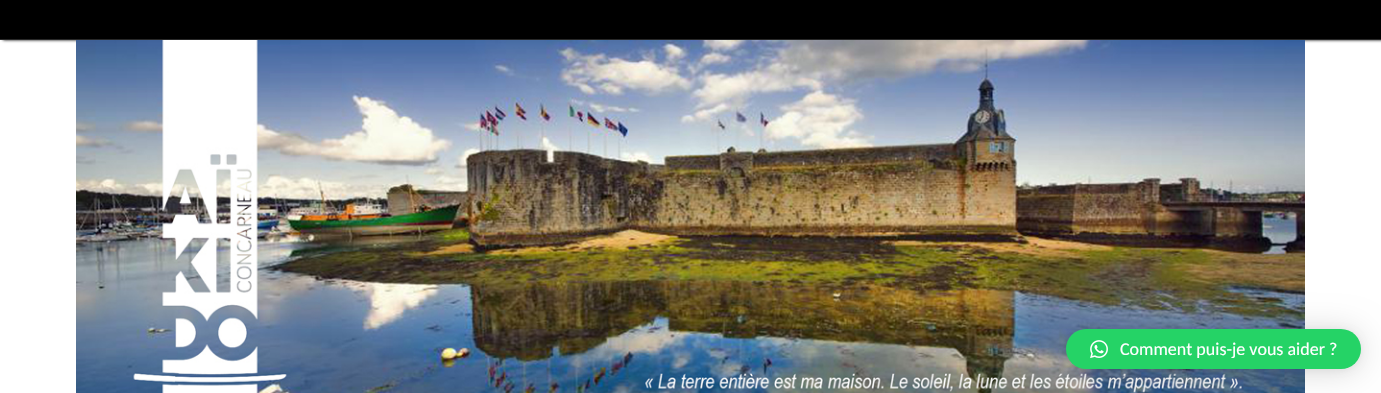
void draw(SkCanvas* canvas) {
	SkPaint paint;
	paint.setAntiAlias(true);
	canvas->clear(0xffffffff);
	paint.setColor(0xff000000);
	paint.setMaskFilter(SkMaskFilter::MakeBlur(kNormal_SkBlurStyle, 1.5));
	canvas->drawRect(SkRect::MakeXYWH(3, 0, 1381, 40), paint);
	paint.setMaskFilter(nullptr);
	canvas->drawRect(SkRect::MakeXYWH(0, 0, 1381, 39), paint);
	paint.setColor(0xff282828);
	canvas->drawRect(SkRect::MakeXYWH(0, 39, 1381, 1), paint);
	canvas->drawImageRect(SkImages::DeferredFromEncodedData(SkData::MakeFromFileName("img1.png")), SkRect::MakeXYWH(76, 40, 1229, 353), SkSamplingOptions());
	paint.setColor(0x29000000);
	paint.setMaskFilter(SkMaskFilter::MakeBlur(kNormal_SkBlurStyle, 16));
	canvas->drawRoundRect(SkRect::MakeXYWH(1066, 331, 295, 40), 20, 20, paint);
	paint.setMaskFilter(nullptr);
	paint.setColor(0x0f000000);
	paint.setMaskFilter(SkMaskFilter::MakeBlur(kNormal_SkBlurStyle, 3));
	canvas->drawRoundRect(SkRect::MakeXYWH(1066, 330, 295, 40), 20, 20, paint);
	paint.setMaskFilter(nullptr);
	paint.setColor(0xff25d366);
	canvas->drawRoundRect(SkRect::MakeXYWH(1066, 329, 295, 40), 20, 20, paint);
	canvas->drawImageRect(SkImages::DeferredFromEncodedData(SkData::MakeFromFileName("img2.png")), SkRect::MakeXYWH(1090, 340, 18, 19), SkSamplingOptions());
	SkFont f1(fontMgr->matchFamilyStyle("Carlito", SkFontStyle::Normal()), 18);
	f1.setSubpixel(true);
	paint.setColor(0xffffffff);
	canvas->drawString("Comment puis-je vous aider ?", 1120, 355, f1, paint);
}
